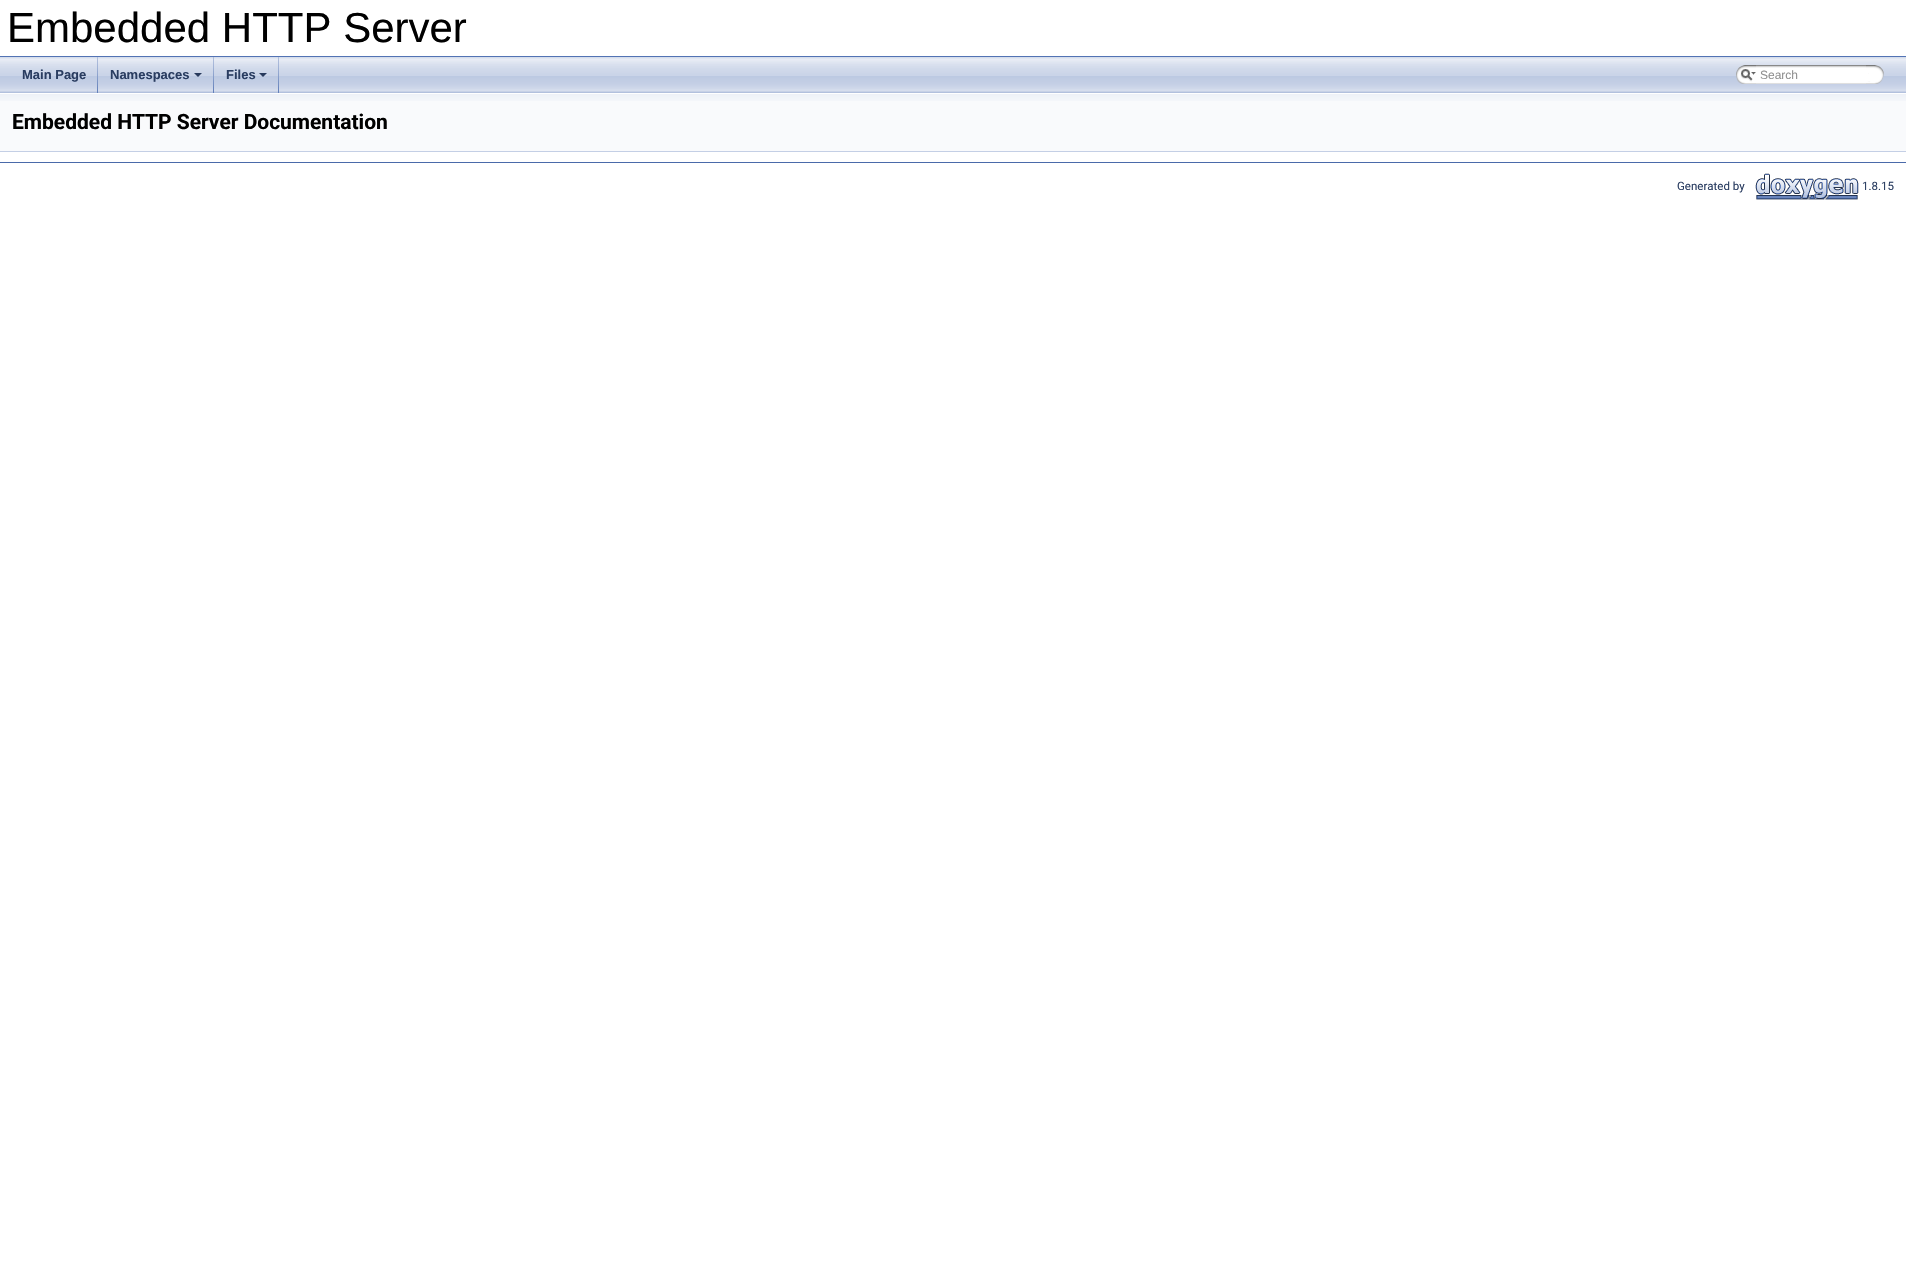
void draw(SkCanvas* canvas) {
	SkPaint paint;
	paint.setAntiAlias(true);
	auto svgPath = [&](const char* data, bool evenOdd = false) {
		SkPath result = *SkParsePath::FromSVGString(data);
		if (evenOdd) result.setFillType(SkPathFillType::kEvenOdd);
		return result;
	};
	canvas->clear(0xffffffff);
	paint.setColor(0xff5373b4);
	canvas->drawRect(SkRect::MakeXYWH(0, 56, 1906, 1), paint);
	SkFont f1(fontMgr->matchFamilyStyle("Liberation Sans", SkFontStyle::Normal()), 42);
	f1.setSubpixel(true);
	paint.setColor(0xff000000);
	canvas->drawString("Embedded HTTP Server", 7, 42, f1, paint);
	canvas->drawImageRect(SkImages::DeferredFromEncodedData(SkData::MakeFromFileName("img1.png")), SkRect::MakeXYWH(0, 57, 1906, 36), SkSamplingOptions());
	canvas->drawImageRect(SkImages::DeferredFromEncodedData(SkData::MakeFromFileName("img2.png")), SkRect::MakeXYWH(97, 57, 1, 36), SkSamplingOptions());
	SkFont f2(fontMgr->matchFamilyStyle("Liberation Sans", SkFontStyle::Bold()), 13);
	f2.setSubpixel(true);
	paint.setColor(0xff2a3d61);
	canvas->drawString("Main Page", 22, 79, f2, paint);
	canvas->drawImageRect(SkImages::DeferredFromEncodedData(SkData::MakeFromFileName("img2.png")), SkRect::MakeXYWH(213, 57, 1, 36), SkSamplingOptions());
	canvas->drawString("Namespaces", 110, 79, f2, paint);
	paint.setColor(0xff283a5d);
	canvas->drawPath(svgPath("M194 73H202L198 77Z"), paint);
	canvas->drawImageRect(SkImages::DeferredFromEncodedData(SkData::MakeFromFileName("img2.png")), SkRect::MakeXYWH(278, 57, 1, 36), SkSamplingOptions());
	paint.setColor(0xff2a3d61);
	canvas->drawString("Files", 226, 79, f2, paint);
	paint.setColor(0xff283a5d);
	canvas->drawPath(svgPath("M259 73H267L263 77Z"), paint);
	canvas->drawImageRect(SkImages::DeferredFromEncodedData(SkData::MakeFromFileName("img3.png")), SkRect::MakeXYWH(1736, 65, 20, 19), SkSamplingOptions());
	canvas->drawImageRect(SkImages::DeferredFromEncodedData(SkData::MakeFromFileName("img4.png")), SkRect::MakeXYWH(1741, 69, 15, 12), SkSamplingOptions());
	canvas->drawImageRect(SkImages::DeferredFromEncodedData(SkData::MakeFromFileName("img5.png")), SkRect::MakeXYWH(1756, 65, 110, 19), SkSamplingOptions());
	SkFont f3(fontMgr->matchFamilyStyle("Liberation Sans", SkFontStyle::Normal()), 12);
	f3.setSubpixel(true);
	paint.setColor(0xff909090);
	canvas->drawString("Search", 1760, 79, f3, paint);
	canvas->drawImageRect(SkImages::DeferredFromEncodedData(SkData::MakeFromFileName("img6.png")), SkRect::MakeXYWH(1866, 65, 18, 19), SkSamplingOptions());
	paint.setColor(0xfff9fafc);
	canvas->drawRect(SkRect::MakeXYWH(0, 101, 1906, 50), paint);
	canvas->drawImageRect(SkImages::DeferredFromEncodedData(SkData::MakeFromFileName("img7.png")), SkRect::MakeXYWH(0, 93, 1906, 8), SkSamplingOptions());
	paint.setColor(0xffc4cfe5);
	canvas->drawRect(SkRect::MakeXYWH(0, 151, 1906, 1), paint);
	SkFont f4(fontMgr->matchFamilyStyle("Roboto", SkFontStyle::Bold()), 21);
	f4.setSubpixel(true);
	paint.setColor(0xff000000);
	canvas->drawString("Embedded HTTP Server Documentation", 12, 129, f4, paint);
	paint.setColor(0xff4a6aaa);
	canvas->drawRect(SkRect::MakeXYWH(0, 162, 1906, 1), paint);
	SkFont f5(fontMgr->matchFamilyStyle("Roboto", SkFontStyle::Normal()), 11.5);
	f5.setSubpixel(true);
	paint.setColor(0xff2a3d61);
	canvas->drawString("Generated by", 1677, 190, f5, paint);
	canvas->drawImageRect(SkImages::DeferredFromEncodedData(SkData::MakeFromFileName("img8.png")), SkRect::MakeXYWH(1755, 173, 104, 27), SkSamplingOptions());
	canvas->drawString("1.8.15", 1862, 190, f5, paint);
}
